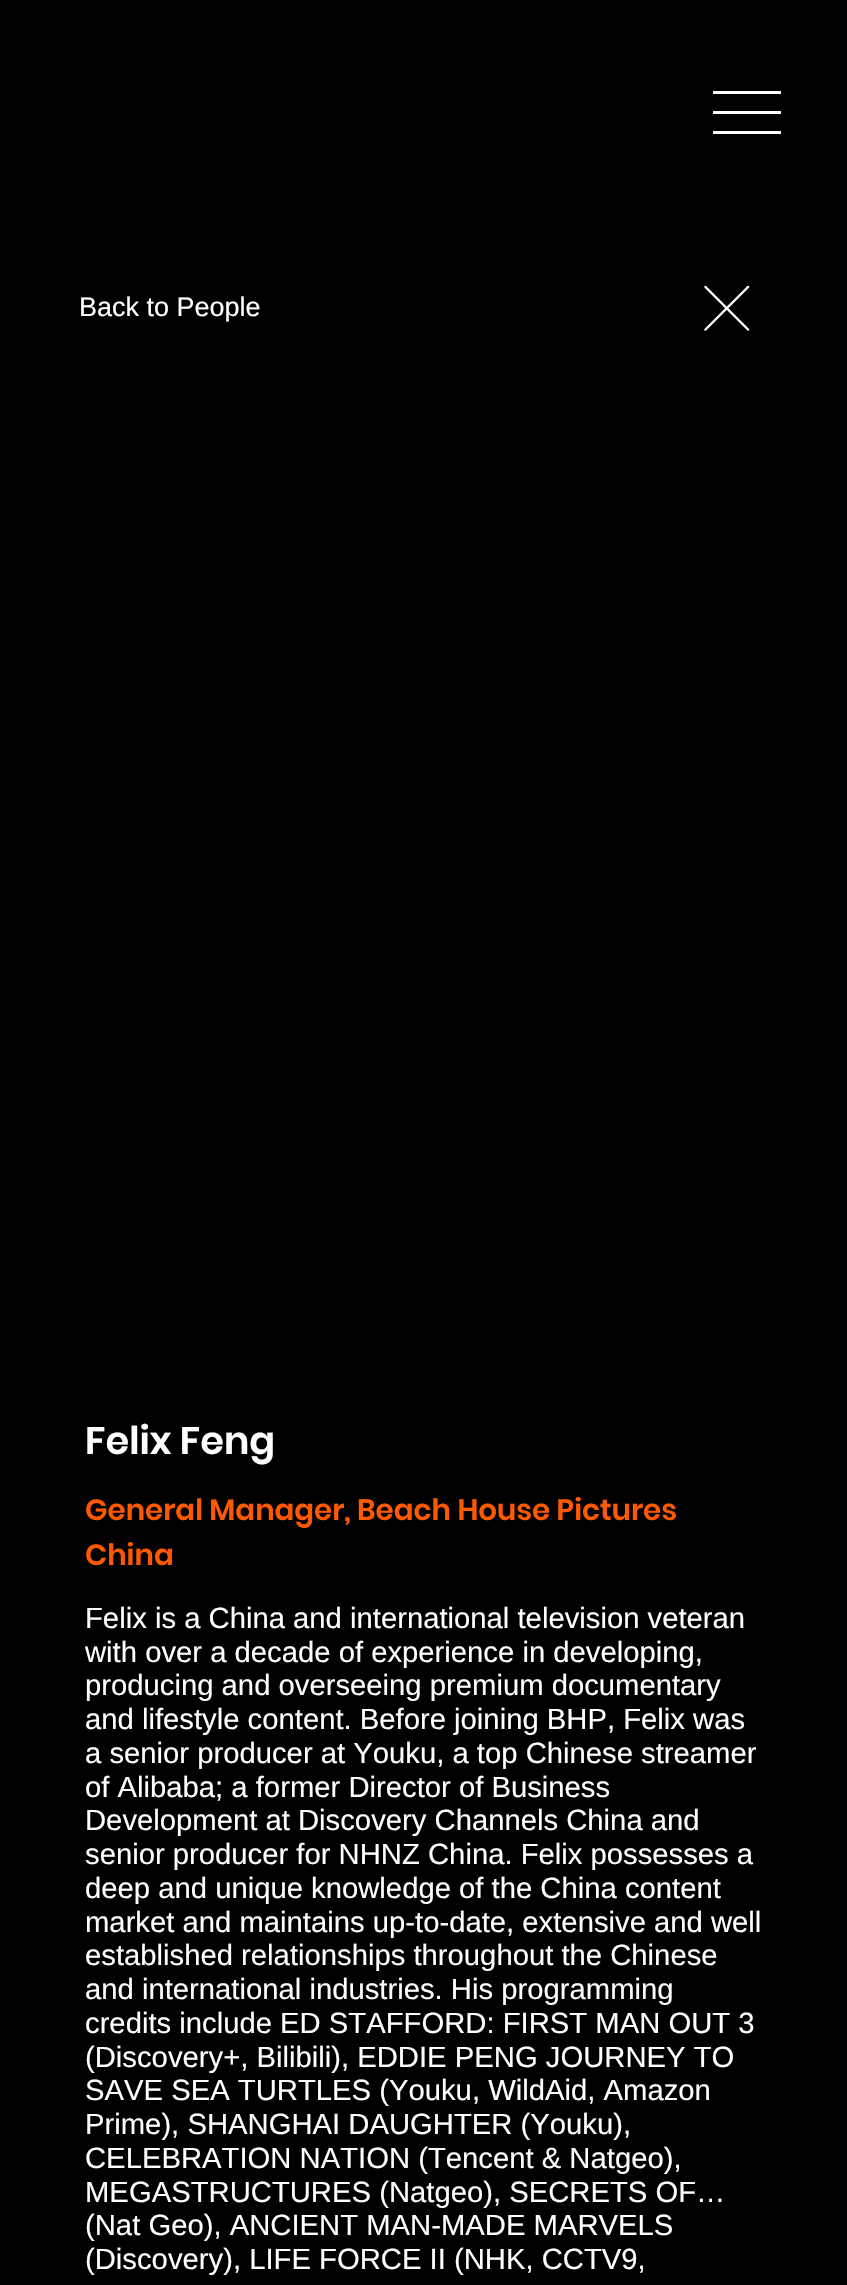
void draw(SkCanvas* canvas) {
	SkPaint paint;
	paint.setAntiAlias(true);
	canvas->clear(0xff000000);
	paint.setColor(0xffffffff);
	canvas->drawRect(SkRect::MakeXYWH(713, 91, 68, 3), paint);
	canvas->drawRect(SkRect::MakeXYWH(713, 111, 68, 3), paint);
	canvas->drawRect(SkRect::MakeXYWH(713, 131, 68, 3), paint);
	SkFont f1(fontMgr->matchFamilyStyle("Liberation Sans", SkFontStyle::Normal()), 27);
	f1.setSubpixel(true);
	canvas->drawString("Back to People", 79, 316, f1, paint);
	canvas->drawImageRect(SkImages::DeferredFromEncodedData(SkData::MakeFromFileName("img1.png")), SkRect::MakeXYWH(704, 285, 46, 46), SkSamplingOptions());
	SkFont f2(fontMgr->matchFamilyStyle("Poppins", SkFontStyle(600, SkFontStyle::kNormal_Width, SkFontStyle::kUpright_Slant)), 38.25);
	f2.setSubpixel(true);
	canvas->drawString("Felix Feng", 85, 1454, f2, paint);
	SkFont f3(fontMgr->matchFamilyStyle("Poppins", SkFontStyle(600, SkFontStyle::kNormal_Width, SkFontStyle::kUpright_Slant)), 29.25);
	f3.setSubpixel(true);
	paint.setColor(0xffff5900);
	canvas->drawString("General Manager, Beach House Pictures", 85, 1520, f3, paint);
	canvas->drawString("China", 85, 1565, f3, paint);
	SkFont f4(fontMgr->matchFamilyStyle("Liberation Sans", SkFontStyle::Normal()), 29.25);
	f4.setSubpixel(true);
	paint.setColor(0xffffffff);
	canvas->drawString("Felix is a China and international television veteran", 85, 1628, f4, paint);
	canvas->drawString("with over a decade of experience in developing,", 85, 1662, f4, paint);
	canvas->drawString("producing and overseeing premium documentary", 85, 1695, f4, paint);
	canvas->drawString("and lifestyle content. Before joining BHP, Felix was", 85, 1729, f4, paint);
	canvas->drawString("a senior producer at Youku, a top Chinese streamer", 85, 1763, f4, paint);
	canvas->drawString("of Alibaba; a former Director of Business", 85, 1797, f4, paint);
	canvas->drawString("Development at Discovery Channels China and", 85, 1830, f4, paint);
	canvas->drawString("senior producer for NHNZ China. Felix possesses a", 85, 1864, f4, paint);
	canvas->drawString("deep and unique knowledge of the China content", 85, 1898, f4, paint);
	canvas->drawString("market and maintains up-to-date, extensive and well", 85, 1932, f4, paint);
	canvas->drawString("established relationships throughout the Chinese", 85, 1965, f4, paint);
	canvas->drawString("and international industries. His programming", 85, 1999, f4, paint);
	canvas->drawString("credits include ED STAFFORD: FIRST MAN OUT 3", 85, 2033, f4, paint);
	canvas->drawString("(Discovery+, Bilibili), EDDIE PENG JOURNEY TO", 85, 2067, f4, paint);
	canvas->drawString("SAVE SEA TURTLES (Youku, WildAid, Amazon", 85, 2100, f4, paint);
	canvas->drawString("Prime), SHANGHAI DAUGHTER (Youku),", 85, 2134, f4, paint);
	canvas->drawString("CELEBRATION NATION (Tencent & Natgeo),", 85, 2168, f4, paint);
	canvas->drawString("MEGASTRUCTURES (Natgeo), SECRETS OF…", 85, 2202, f4, paint);
	canvas->drawString("(Nat Geo), ANCIENT MAN-MADE MARVELS", 85, 2235, f4, paint);
	canvas->drawString("(Discovery), LIFE FORCE II (NHK, CCTV9,", 85, 2269, f4, paint);
}
